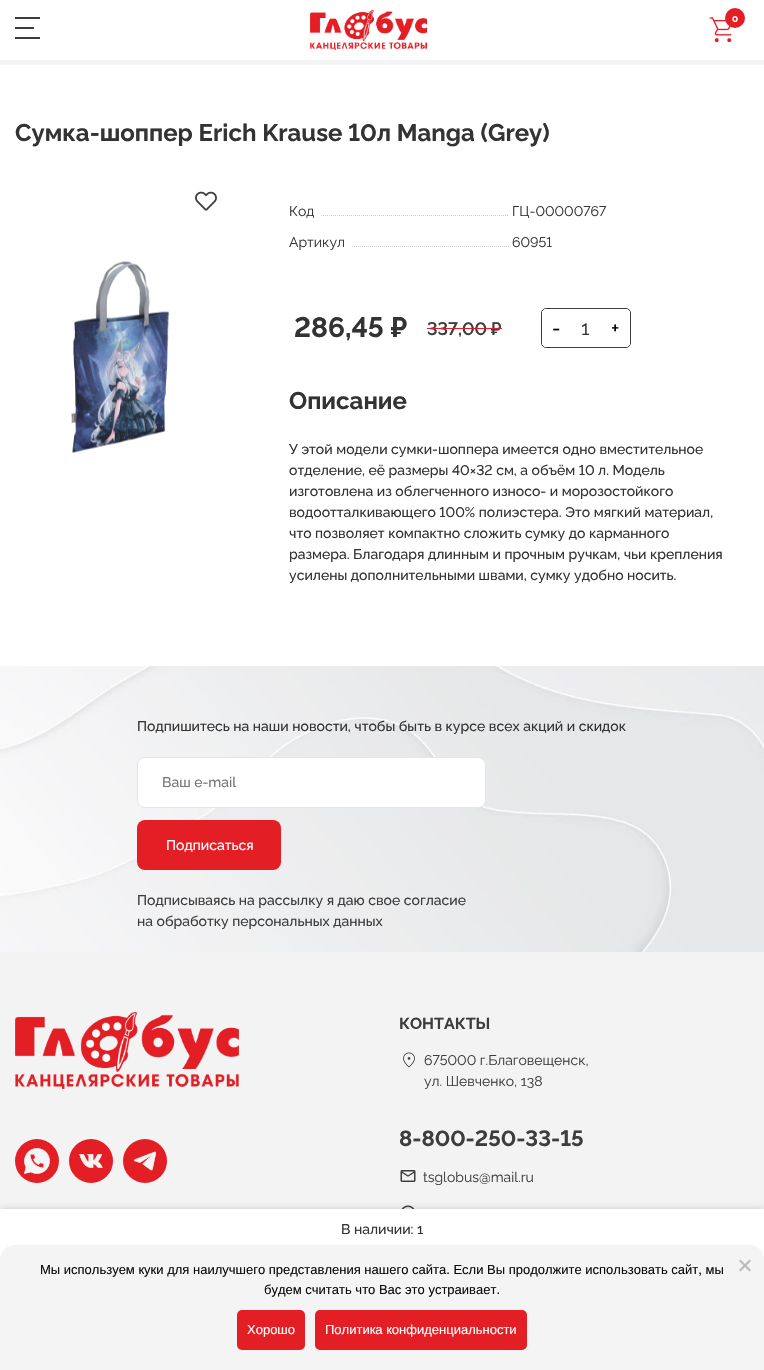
void draw(SkCanvas* canvas) {
	SkPaint paint;
	paint.setAntiAlias(true);
	auto svgPath = [&](const char* data, bool evenOdd = false) {
		SkPath result = *SkParsePath::FromSVGString(data);
		if (evenOdd) result.setFillType(SkPathFillType::kEvenOdd);
		return result;
	};
	canvas->clear(0xffffffff);
	paint.setColor(0xff3d3d3d);
	canvas->drawRect(SkRect::MakeXYWH(15, 17, 25, 2), paint);
	canvas->drawRect(SkRect::MakeXYWH(15, 27, 19, 2), paint);
	canvas->drawRect(SkRect::MakeXYWH(15, 37, 25, 2), paint);
	canvas->drawImageRect(SkImages::DeferredFromEncodedData(SkData::MakeFromFileName("img1.png")), SkRect::MakeXYWH(310, 10, 117, 40), SkSamplingOptions());
	canvas->drawImageRect(SkImages::DeferredFromEncodedData(SkData::MakeFromFileName("img2.png")), SkRect::MakeXYWH(709, 17, 23, 26), SkSamplingOptions());
	paint.setColor(0xffe31e25);
	canvas->drawCircle(735, 18, 10, paint);
	SkFont f1(fontMgr->matchFamilyStyle("Raleway", SkFontStyle::Bold()), 10);
	f1.setSubpixel(true);
	paint.setColor(0xffffffff);
	canvas->drawString("0", 732, 22, f1, paint);
	paint.setColor(0xfff4f4f4);
	canvas->drawRect(SkRect::MakeXYWH(0, 60, 764, 5), paint);
	SkFont f2(fontMgr->matchFamilyStyle("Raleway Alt", SkFontStyle::Bold()), 24);
	f2.setSubpixel(true);
	paint.setColor(0xff333333);
	canvas->drawString("Сумка-шоппер Erich Krause 10л Manga (Grey)", 15, 141, f2, paint);
	canvas->drawImageRect(SkImages::DeferredFromEncodedData(SkData::MakeFromFileName("img3.png")), SkRect::MakeXYWH(195, 191, 22, 20), SkSamplingOptions());
	canvas->drawImageRect(SkImages::DeferredFromEncodedData(SkData::MakeFromFileName("img4.png")), SkRect::MakeXYWH(71, 261, 99, 192), SkSamplingOptions());
	SkFont f3(fontMgr->matchFamilyStyle("Raleway", SkFontStyle::Normal()), 14);
	f3.setSubpixel(true);
	canvas->drawString("Код", 289, 216, f3, paint);
	canvas->save();
	canvas->clipRect(SkRect::MakeXYWH(289, 201, 220, 21));
	paint.setStroke(true);
	paint.setStrokeWidth(1);
	paint.setColor(0xffcccccc);
	paint.setPathEffect(SkDashPathEffect::Make({{1, 1}}, 0));
	canvas->drawPath(svgPath("M321 215.5H541"), paint);
	paint.setPathEffect(nullptr);
	canvas->restore();
	SkFont f4(fontMgr->matchFamilyStyle("Raleway Alt", SkFontStyle::Normal()), 14);
	f4.setSubpixel(true);
	paint.setStroke(false);
	paint.setColor(0xff333333);
	canvas->drawString("ГЦ-00000767", 512, 216, f4, paint);
	canvas->drawString("Артикул", 289, 247, f3, paint);
	canvas->save();
	canvas->clipRect(SkRect::MakeXYWH(289, 232, 220, 21));
	paint.setStroke(true);
	paint.setColor(0xffcccccc);
	paint.setPathEffect(SkDashPathEffect::Make({{1, 1}}, 0));
	canvas->drawPath(svgPath("M352 246.5H572"), paint);
	paint.setPathEffect(nullptr);
	canvas->restore();
	paint.setStroke(false);
	paint.setColor(0xff333333);
	canvas->drawString("60951", 512, 247, f4, paint);
	SkFont f5(fontMgr->matchFamilyStyle("Raleway Alt", SkFontStyle::Bold()), 28);
	f5.setSubpixel(true);
	canvas->drawString("286,45", 294, 337, f5, paint);
	SkFont f6(fontMgr->matchFamilyStyle("Raleway", SkFontStyle::Bold()), 28);
	f6.setSubpixel(true);
	canvas->drawString("₽", 391, 337, f6, paint);
	SkFont f7(fontMgr->matchFamilyStyle("Raleway Alt", SkFontStyle(600, SkFontStyle::kNormal_Width, SkFontStyle::kUpright_Slant)), 18);
	f7.setSubpixel(true);
	paint.setColor(0xff3d3d3d);
	canvas->drawString("337,00", 427, 335, f7, paint);
	SkFont f8(fontMgr->matchFamilyStyle("Raleway", SkFontStyle(600, SkFontStyle::kNormal_Width, SkFontStyle::kUpright_Slant)), 18);
	f8.setSubpixel(true);
	canvas->drawString("₽", 491, 335, f8, paint);
	paint.setColor(0xffe31e25);
	canvas->drawRect(SkRect::MakeXYWH(427, 328, 64, 1), paint);
	canvas->drawRect(SkRect::MakeXYWH(491, 328, 11, 1), paint);
	paint.setStroke(true);
	paint.setColor(0xff3d3d3d);
	canvas->drawRoundRect(SkRect::MakeXYWH(541.5, 308.5, 89, 39), 4.5, 4.5, paint);
	paint.setStroke(false);
	paint.setColor(0xffffffff);
	canvas->drawPath(svgPath("M546 309H571V347H546C544 347 542 345 542 343V313C542 311 544 309 546 309Z"), paint);
	SkFont f9(fontMgr->matchFamilyStyle("Raleway", SkFontStyle(500, SkFontStyle::kNormal_Width, SkFontStyle::kUpright_Slant)), 20);
	f9.setSubpixel(true);
	paint.setColor(0xff000000);
	canvas->drawString("-", 552, 335, f9, paint);
	SkFont f10(fontMgr->matchFamilyStyle("Raleway", SkFontStyle::Normal()), 20);
	f10.setSubpixel(true);
	paint.setColor(0xff333333);
	canvas->drawString("1", 581, 335, f10, paint);
	paint.setColor(0xffffffff);
	canvas->drawPath(svgPath("M601 309H626C628 309 630 311 630 313V343C630 345 628 347 626 347H601Z"), paint);
	paint.setColor(0xff000000);
	canvas->drawString("+", 611, 335, f9, paint);
	SkFont f11(fontMgr->matchFamilyStyle("Raleway", SkFontStyle::Bold()), 24);
	f11.setSubpixel(true);
	paint.setColor(0xff333333);
	canvas->drawString("Описание", 289, 409, f11, paint);
	SkFont f12(fontMgr->matchFamilyStyle("Raleway", SkFontStyle(500, SkFontStyle::kNormal_Width, SkFontStyle::kUpright_Slant)), 14);
	f12.setSubpixel(true);
	canvas->drawString("У этой модели сумки-шоппера имеется одно вместительное", 289, 454, f12, paint);
	SkFont f13(fontMgr->matchFamilyStyle("Raleway Alt", SkFontStyle(500, SkFontStyle::kNormal_Width, SkFontStyle::kUpright_Slant)), 14);
	f13.setSubpixel(true);
	canvas->drawString("отделение, её размеры 40×32 см, а объём 10 л. Модель", 289, 475, f13, paint);
	canvas->drawString("изготовлена из облегченного износо- и морозостойкого", 289, 496, f12, paint);
	canvas->drawString("водоотталкивающего 100% полиэстера. Это мягкий материал,", 289, 517, f13, paint);
	canvas->drawString("что позволяет компактно сложить сумку до карманного", 289, 538, f12, paint);
	canvas->drawString("размера. Благодаря длинным и прочным ручкам, чьи крепления", 289, 559, f12, paint);
	canvas->drawString("усилены дополнительными швами, сумку удобно носить.", 289, 580, f12, paint);
	paint.setColor(0xfff3f3f3);
	canvas->drawRect(SkRect::MakeXYWH(0, 952, 764, 257), paint);
	canvas->drawImageRect(SkImages::DeferredFromEncodedData(SkData::MakeFromFileName("img12.png")), SkRect::MakeXYWH(401, 1205, 14, 4), SkSamplingOptions());
	paint.setColor(0x3322201e);
	paint.setMaskFilter(SkMaskFilter::MakeBlur(kNormal_SkBlurStyle, 3.5));
	canvas->drawRect(SkRect::MakeXYWH(0, 1209, 764, 101), paint);
	paint.setMaskFilter(nullptr);
	paint.setColor(0xffffffff);
	canvas->drawRect(SkRect::MakeXYWH(0, 1209, 764, 51), paint);
	paint.setColor(0xff333333);
	canvas->drawString("В наличии: 1", 341, 1234, f12, paint);
	canvas->drawImageRect(SkImages::DeferredFromEncodedData(SkData::MakeFromFileName("img5.png")), SkRect::MakeXYWH(0, 666, 764, 286), SkSamplingOptions());
	canvas->drawString("Подпишитесь на наши новости, чтобы быть в курсе всех акций и скидок", 137, 731, f12, paint);
	paint.setColor(0xffffffff);
	canvas->drawRoundRect(SkRect::MakeXYWH(137.5, 757.5, 348, 50), 7.5, 7.5, paint);
	paint.setStroke(true);
	paint.setColor(0xffe6e6e6);
	canvas->drawRoundRect(SkRect::MakeXYWH(137.5, 757.5, 348, 50), 7.5, 7.5, paint);
	paint.setStroke(false);
	paint.setColor(0xff757575);
	canvas->drawString("Ваш e-mail", 162, 787, f12, paint);
	paint.setColor(0xffe31e25);
	canvas->drawRoundRect(SkRect::MakeXYWH(137, 820, 144, 50), 8, 8, paint);
	paint.setColor(0xffffffff);
	canvas->drawString("Подписаться", 166, 850, f12, paint);
	paint.setColor(0xff3d3d3d);
	canvas->drawString("Подписываясь на рассылку я даю свое согласие", 137, 905, f12, paint);
	canvas->drawString("на обработку персональных данных", 137, 926, f12, paint);
	canvas->drawImageRect(SkImages::DeferredFromEncodedData(SkData::MakeFromFileName("img6.png")), SkRect::MakeXYWH(15, 1012, 224, 77), SkSamplingOptions());
	paint.setColor(0xffe31e25);
	canvas->drawCircle(37, 1161, 22, paint);
	canvas->drawImageRect(SkImages::DeferredFromEncodedData(SkData::MakeFromFileName("img7.png")), SkRect::MakeXYWH(24, 1148, 26, 26), SkSamplingOptions());
	canvas->drawCircle(91, 1161, 22, paint);
	canvas->drawImageRect(SkImages::DeferredFromEncodedData(SkData::MakeFromFileName("img8.png")), SkRect::MakeXYWH(79, 1154, 24, 14), SkSamplingOptions());
	canvas->drawCircle(145, 1161, 22, paint);
	canvas->drawImageRect(SkImages::DeferredFromEncodedData(SkData::MakeFromFileName("img9.png")), SkRect::MakeXYWH(134, 1151, 23, 20), SkSamplingOptions());
	SkFont f14(fontMgr->matchFamilyStyle("Raleway", SkFontStyle::Bold()), 16);
	f14.setSubpixel(true);
	paint.setColor(0xff3d3d3d);
	canvas->drawString("КОНТАКТЫ", 399, 1029, f14, paint);
	canvas->drawImageRect(SkImages::DeferredFromEncodedData(SkData::MakeFromFileName("img10.png")), SkRect::MakeXYWH(403, 1052, 12, 16), SkSamplingOptions());
	canvas->drawString("675000 г.Благовещенск,", 424, 1065, f4, paint);
	canvas->drawString("ул. Шевченко, 138", 424, 1086, f3, paint);
	SkFont f15(fontMgr->matchFamilyStyle("Raleway Alt", SkFontStyle::Bold()), 22);
	f15.setSubpixel(true);
	canvas->drawString("8-800-250-33-15", 399, 1146, f15, paint);
	canvas->drawImageRect(SkImages::DeferredFromEncodedData(SkData::MakeFromFileName("img11.png")), SkRect::MakeXYWH(400, 1170, 16, 12), SkSamplingOptions());
	canvas->drawString("tsglobus@mail.ru", 423, 1182, f3, paint);
	paint.setColor(0xfff4f4f4);
	canvas->drawPath(svgPath("M15 1245H749C757.5 1245 764 1251.5 764 1260V1370H0V1260C0 1251.5 6.5 1245 15 1245Z"), paint);
	SkFont f16(fontMgr->matchFamilyStyle("Liberation Sans", SkFontStyle::Normal()), 13);
	f16.setSubpixel(true);
	paint.setColor(0xff0a0a0a);
	canvas->drawString("Мы используем куки для наилучшего представления нашего сайта. Если Вы продолжите использовать сайт, мы", 40, 1274, f16, paint);
	canvas->drawString("будем считать что Вас это устраивает.", 264, 1294, f16, paint);
	paint.setColor(0xffbababa);
	canvas->drawPath(svgPath("M749.5 1259.5L751 1261L740.5 1271.5L739 1270Z"), paint);
	canvas->drawPath(svgPath("M739 1261L740.5 1259.5L751 1270L749.5 1271.5Z"), paint);
	paint.setColor(0xffe31e25);
	canvas->drawRoundRect(SkRect::MakeXYWH(237, 1310, 68, 40), 5, 5, paint);
	paint.setColor(0xffffffff);
	canvas->drawString("Хорошо", 247, 1334, f16, paint);
	paint.setColor(0xffe31e25);
	canvas->drawRoundRect(SkRect::MakeXYWH(315, 1310, 212, 40), 5, 5, paint);
	paint.setColor(0xffffffff);
	canvas->drawString("Политика конфиденциальности", 325, 1334, f16, paint);
}
